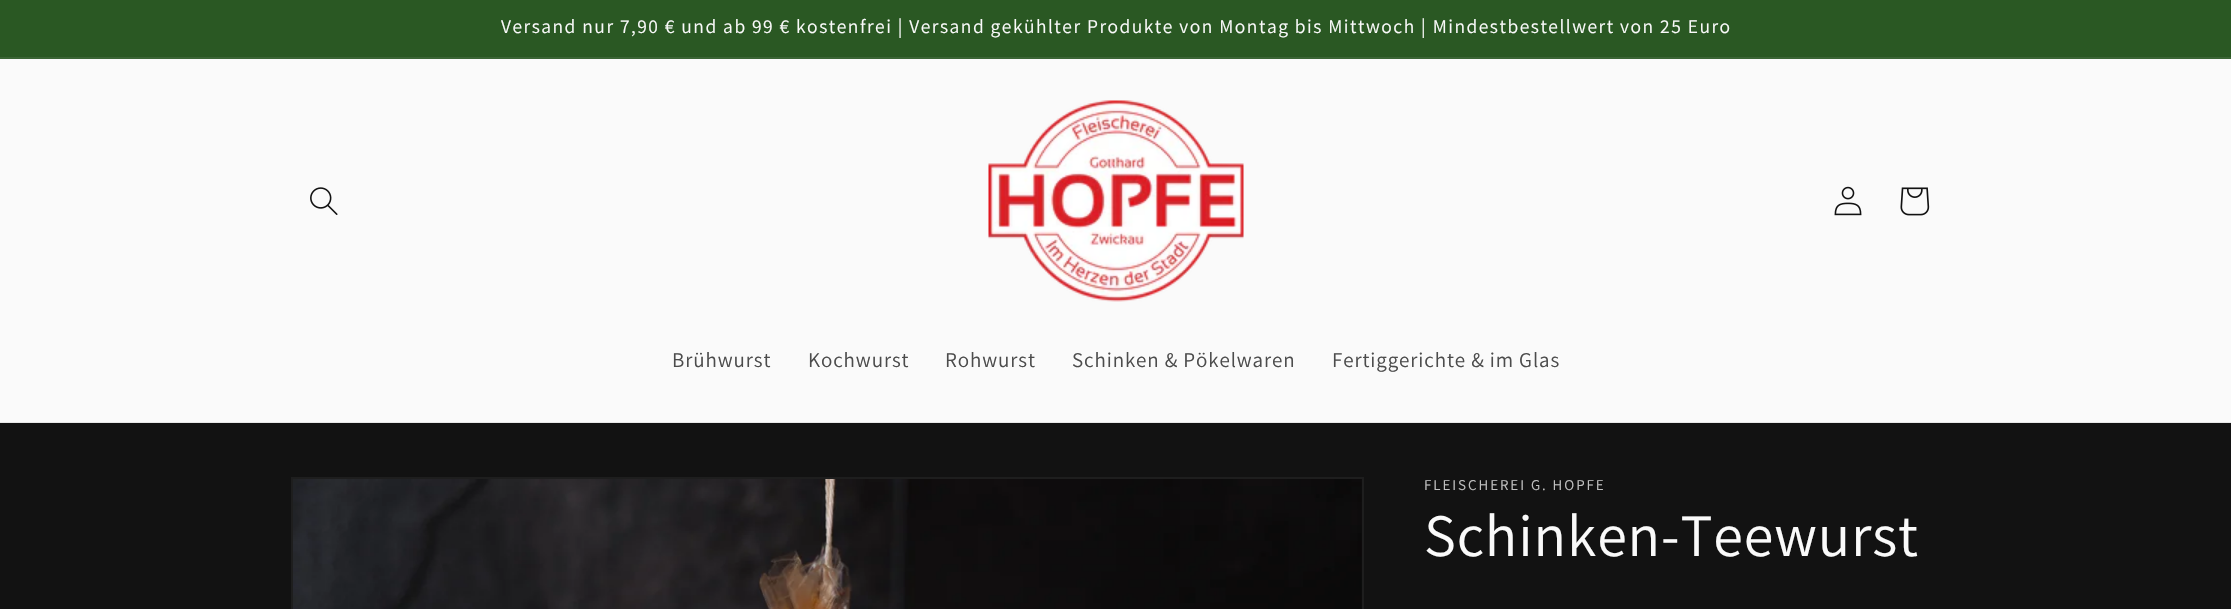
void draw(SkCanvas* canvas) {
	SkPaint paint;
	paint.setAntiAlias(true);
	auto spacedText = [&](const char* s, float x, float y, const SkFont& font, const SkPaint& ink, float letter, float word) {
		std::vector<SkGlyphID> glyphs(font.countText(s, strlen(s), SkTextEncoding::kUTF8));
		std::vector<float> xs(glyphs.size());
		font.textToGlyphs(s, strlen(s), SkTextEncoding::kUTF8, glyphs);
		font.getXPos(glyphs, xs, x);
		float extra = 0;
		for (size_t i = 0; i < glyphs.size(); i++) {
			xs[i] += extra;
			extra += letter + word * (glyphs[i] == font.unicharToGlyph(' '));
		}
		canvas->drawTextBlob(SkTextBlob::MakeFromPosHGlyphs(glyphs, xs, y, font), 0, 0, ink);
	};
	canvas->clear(0xff121212);
	paint.setColor(0xff2a5823);
	canvas->drawRect(SkRect::MakeXYWH(0, 0, 2231, 57), paint);
	paint.setColor(0xff3b6535);
	canvas->drawRect(SkRect::MakeXYWH(0, 57, 2231, 2), paint);
	SkFont f1(fontMgr->matchFamilyStyle("Assistant", SkFontStyle::Normal()), 19.5);
	f1.setSubpixel(true);
	paint.setColor(0xfffafafa);
	spacedText("Versand nur 7,90 € und ab 99 € kostenfrei | Versand gekühlter Produkte von Montag bis Mittwoch | Mindestbestellwert von 25 Euro", 501, 33, f1, paint, 1.5, 0);
	canvas->drawRect(SkRect::MakeXYWH(0, 59, 2231, 363), paint);
	paint.setColor(0xffe7e7e7);
	canvas->drawRect(SkRect::MakeXYWH(0, 422, 2231, 1), paint);
	canvas->drawImageRect(SkImages::DeferredFromEncodedData(SkData::MakeFromFileName("img1.png")), SkRect::MakeXYWH(310, 187, 28, 28), SkSamplingOptions());
	canvas->drawImageRect(SkImages::DeferredFromEncodedData(SkData::MakeFromFileName("img2.png")), SkRect::MakeXYWH(988, 100, 256, 202), SkSamplingOptions());
	canvas->drawImageRect(SkImages::DeferredFromEncodedData(SkData::MakeFromFileName("img3.png")), SkRect::MakeXYWH(1834, 186, 28, 30), SkSamplingOptions());
	canvas->drawImageRect(SkImages::DeferredFromEncodedData(SkData::MakeFromFileName("img4.png")), SkRect::MakeXYWH(1900, 187, 30, 29), SkSamplingOptions());
	SkFont f2(fontMgr->matchFamilyStyle("Assistant", SkFontStyle::Normal()), 21);
	f2.setSubpixel(true);
	paint.setColor(0xff4c4c4c);
	spacedText("Brühwurst", 672, 367, f2, paint, 0.9, 0);
	spacedText("Kochwurst", 808, 367, f2, paint, 0.9, 0);
	spacedText("Rohwurst", 945, 367, f2, paint, 0.9, 0);
	spacedText("Schinken & Pökelwaren", 1072, 367, f2, paint, 0.9, 0);
	spacedText("Fertiggerichte & im Glas", 1332, 367, f2, paint, 0.9, 0);
	paint.setStroke(true);
	paint.setStrokeWidth(2);
	paint.setColor(0xff1e1e1e);
	canvas->drawRect(SkRect::MakeXYWH(292, 478, 1071, 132), paint);
	canvas->drawImageRect(SkImages::DeferredFromEncodedData(SkData::MakeFromFileName("img5.png")), SkRect::MakeXYWH(293, 479, 1069, 130), SkSamplingOptions());
	SkFont f3(fontMgr->matchFamilyStyle("Assistant", SkFontStyle::Normal()), 15);
	f3.setSubpixel(true);
	paint.setStroke(false);
	paint.setColor(0xffc0c0c0);
	spacedText("FLEISCHEREI G. HOPFE", 1424, 490, f3, paint, 1.95, 0);
	SkFont f4(fontMgr->matchFamilyStyle("Assistant", SkFontStyle::Normal()), 60);
	f4.setSubpixel(true);
	paint.setColor(0xfffafafa);
	spacedText("Schinken-Teewurst", 1424, 556, f4, paint, 0.9, 0);
}
